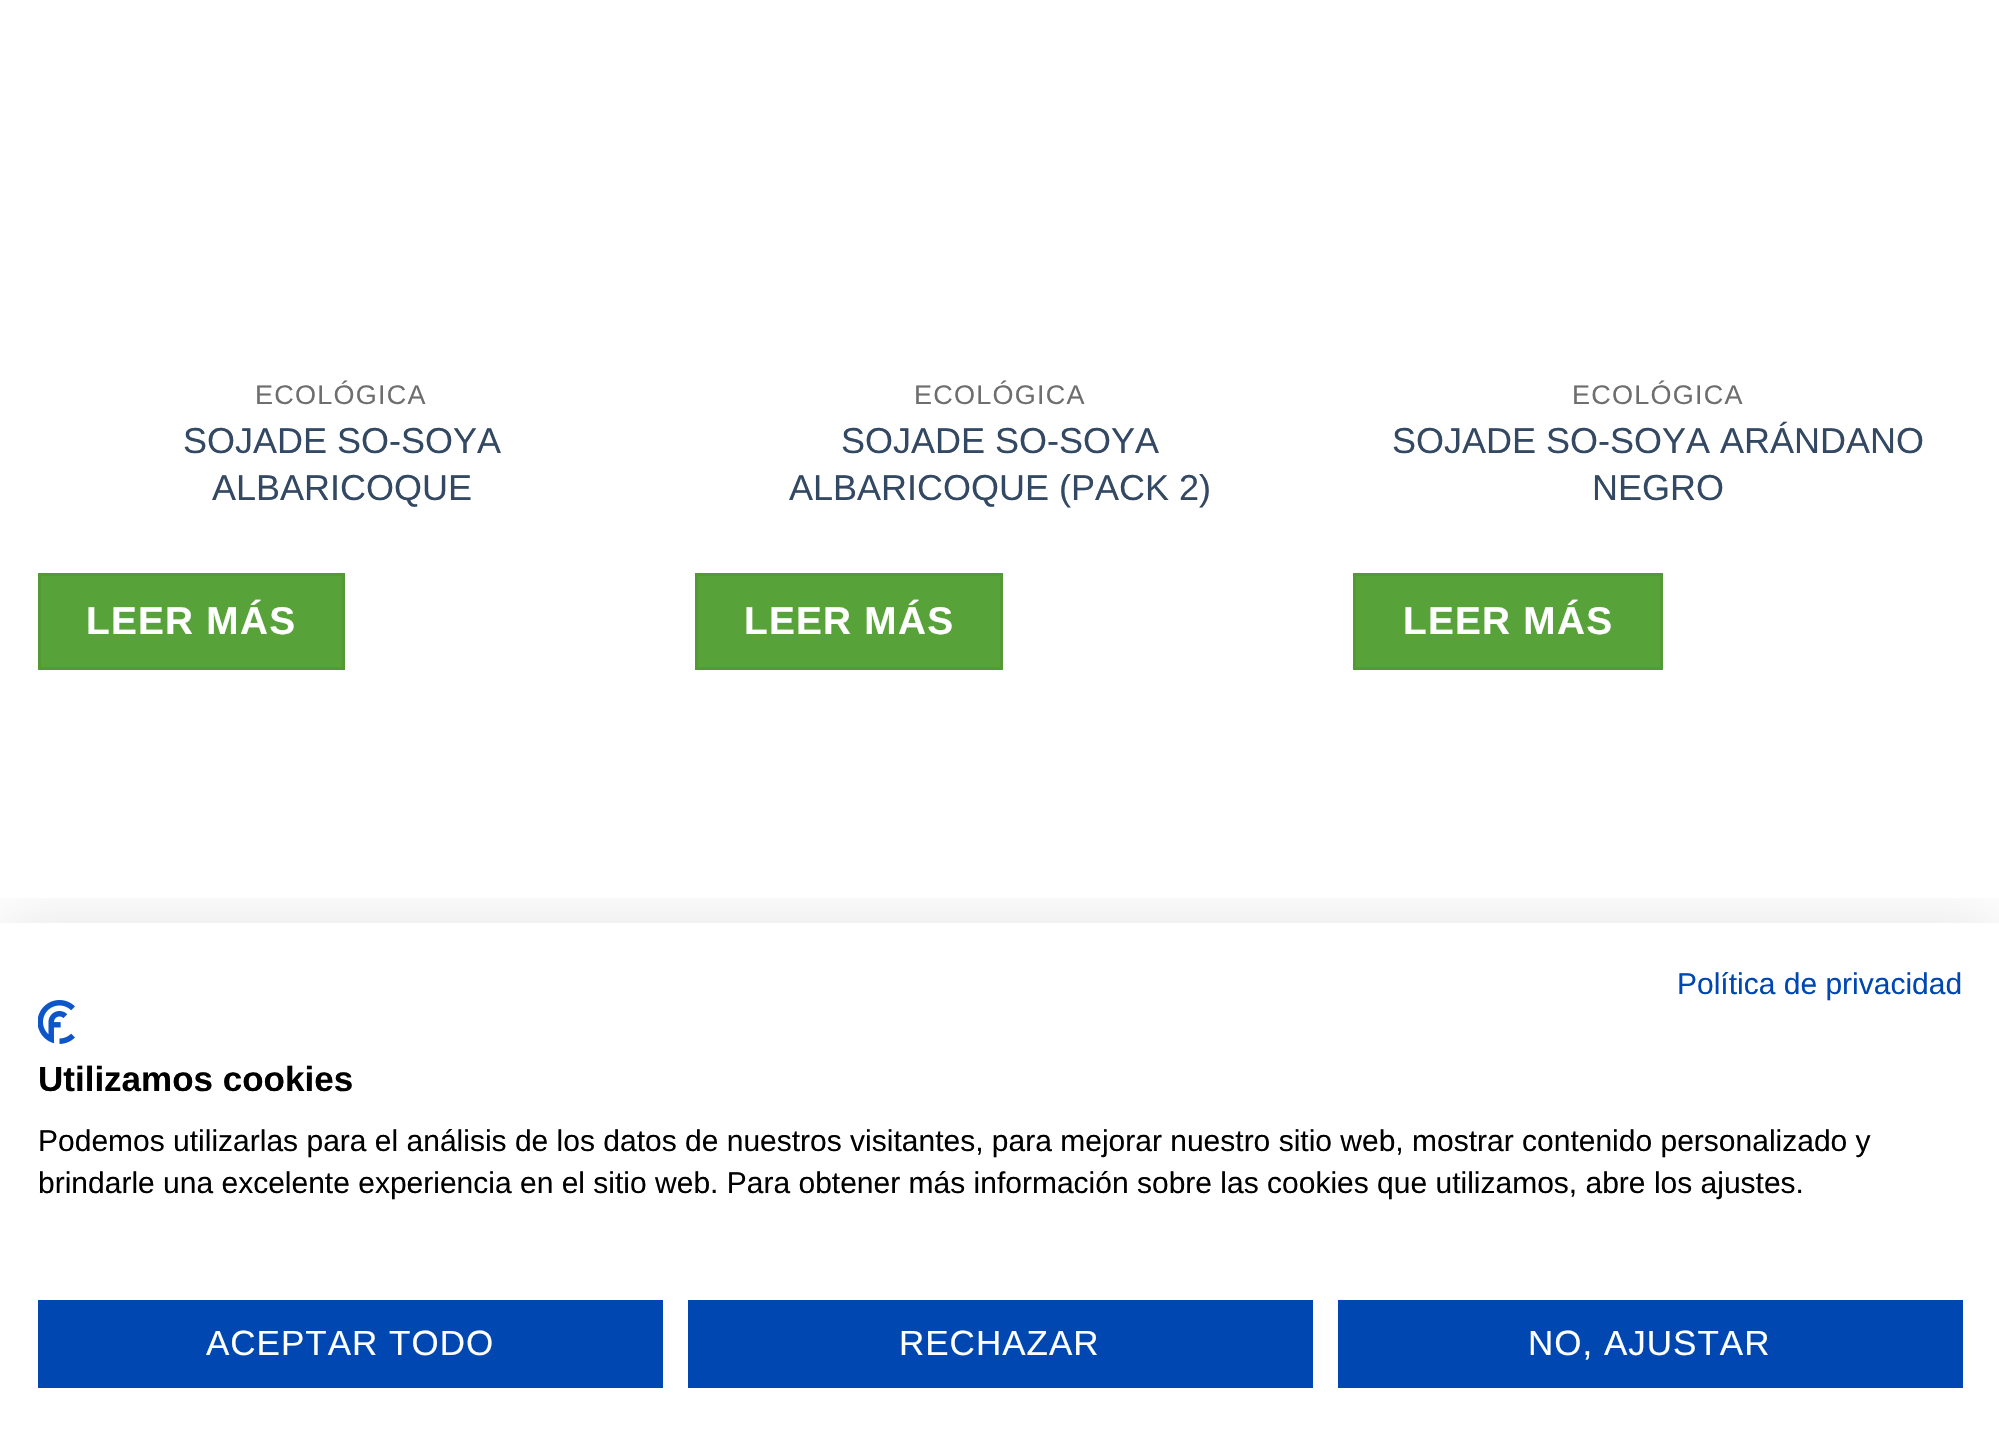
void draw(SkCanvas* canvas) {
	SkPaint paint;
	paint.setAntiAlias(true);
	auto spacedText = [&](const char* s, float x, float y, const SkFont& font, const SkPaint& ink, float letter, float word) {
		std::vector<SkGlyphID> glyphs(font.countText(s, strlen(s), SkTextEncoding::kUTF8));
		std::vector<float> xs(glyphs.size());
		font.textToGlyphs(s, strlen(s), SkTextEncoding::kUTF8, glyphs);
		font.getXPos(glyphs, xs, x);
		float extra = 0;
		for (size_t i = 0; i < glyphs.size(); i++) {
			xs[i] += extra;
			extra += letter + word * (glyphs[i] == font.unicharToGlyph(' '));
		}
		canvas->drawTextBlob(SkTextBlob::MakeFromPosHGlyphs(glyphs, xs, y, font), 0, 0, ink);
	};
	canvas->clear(0xffffffff);
	SkFont f1(fontMgr->matchFamilyStyle("Liberation Sans", SkFontStyle::Normal()), 27);
	f1.setSubpixel(true);
	paint.setColor(0xff6e6e6e);
	spacedText("ECOLÓGICA", 255, 404, f1, paint, 1.25, 0);
	SkFont f2(fontMgr->matchFamilyStyle("Liberation Sans", SkFontStyle::Normal()), 36);
	f2.setSubpixel(true);
	paint.setColor(0xff334862);
	canvas->drawString("SOJADE SO-SOYA", 183, 453, f2, paint);
	canvas->drawString("ALBARICOQUE", 212, 500, f2, paint);
	paint.setColor(0xff57a239);
	canvas->drawRect(SkRect::MakeXYWH(39.5, 574.5, 304, 94), paint);
	paint.setStroke(true);
	paint.setStrokeWidth(3);
	paint.setColor(0xff539a36);
	canvas->drawRect(SkRect::MakeXYWH(39.5, 574.5, 304, 94), paint);
	SkFont f3(fontMgr->matchFamilyStyle("Liberation Sans", SkFontStyle::Bold()), 38.75);
	f3.setSubpixel(true);
	paint.setStroke(false);
	paint.setColor(0xffffffff);
	spacedText("LEER MÁS", 86, 634, f3, paint, 1.25, 0);
	paint.setColor(0xff6e6e6e);
	spacedText("ECOLÓGICA", 914, 404, f1, paint, 1.25, 0);
	paint.setColor(0xff334862);
	canvas->drawString("SOJADE SO-SOYA", 841, 453, f2, paint);
	canvas->drawString("ALBARICOQUE (PACK 2)", 789, 500, f2, paint);
	paint.setColor(0xff57a239);
	canvas->drawRect(SkRect::MakeXYWH(696.5, 574.5, 305, 94), paint);
	paint.setStroke(true);
	paint.setColor(0xff539a36);
	canvas->drawRect(SkRect::MakeXYWH(696.5, 574.5, 305, 94), paint);
	paint.setStroke(false);
	paint.setColor(0xffffffff);
	spacedText("LEER MÁS", 744, 634, f3, paint, 1.25, 0);
	paint.setColor(0xff6e6e6e);
	spacedText("ECOLÓGICA", 1572, 404, f1, paint, 1.25, 0);
	paint.setColor(0xff334862);
	canvas->drawString("SOJADE SO-SOYA ARÁNDANO", 1392, 453, f2, paint);
	canvas->drawString("NEGRO", 1592, 500, f2, paint);
	paint.setColor(0xff57a239);
	canvas->drawRect(SkRect::MakeXYWH(1354.5, 574.5, 307, 94), paint);
	paint.setStroke(true);
	paint.setColor(0xff539a36);
	canvas->drawRect(SkRect::MakeXYWH(1354.5, 574.5, 307, 94), paint);
	paint.setStroke(false);
	paint.setColor(0xffffffff);
	spacedText("LEER MÁS", 1403, 634, f3, paint, 1.25, 0);
	canvas->save();
	canvas->clipRect(SkRect::MakeXYWH(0, 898, 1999, 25));
	paint.setColor(0x1a000000);
	paint.setMaskFilter(SkMaskFilter::MakeBlur(kNormal_SkBlurStyle, 30));
	canvas->drawRect(SkRect::MakeXYWH(0, 923, 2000, 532), paint);
	paint.setMaskFilter(nullptr);
	canvas->restore();
	SkFont f4(fontMgr->matchFamilyStyle("Liberation Sans", SkFontStyle::Normal()), 30);
	f4.setSubpixel(true);
	paint.setColor(0xff0047b2);
	canvas->drawString("Política de privacidad", 1677, 994, f4, paint);
	canvas->drawImageRect(SkImages::DeferredFromEncodedData(SkData::MakeFromFileName("img1.png")), SkRect::MakeXYWH(38, 1000, 37, 44), SkSamplingOptions());
	SkFont f5(fontMgr->matchFamilyStyle("Liberation Sans", SkFontStyle::Bold()), 35);
	f5.setSubpixel(true);
	paint.setColor(0xff000000);
	canvas->drawString("Utilizamos cookies", 38, 1091, f5, paint);
	canvas->drawString("Podemos utilizarlas para el análisis de los datos de nuestros visitantes, para mejorar nuestro sitio web, mostrar contenido personalizado y", 38, 1151, f4, paint);
	canvas->drawString("brindarle una excelente experiencia en el sitio web. Para obtener más información sobre las cookies que utilizamos, abre los ajustes.", 38, 1193, f4, paint);
	paint.setColor(0xff0047b2);
	canvas->drawRect(SkRect::MakeXYWH(38, 1300, 625, 88), paint);
	SkFont f6(fontMgr->matchFamilyStyle("Liberation Sans", SkFontStyle::Normal()), 35);
	f6.setSubpixel(true);
	paint.setColor(0xffffffff);
	spacedText("ACEPTAR TODO", 206, 1355, f6, paint, 1, 0);
	paint.setColor(0xff0047b2);
	canvas->drawRect(SkRect::MakeXYWH(688, 1300, 625, 88), paint);
	paint.setColor(0xffffffff);
	spacedText("RECHAZAR", 899, 1355, f6, paint, 1, 0);
	paint.setColor(0xff0047b2);
	canvas->drawRect(SkRect::MakeXYWH(1338, 1300, 625, 88), paint);
	paint.setColor(0xffffffff);
	spacedText("NO, AJUSTAR", 1528, 1355, f6, paint, 1, 0);
}
